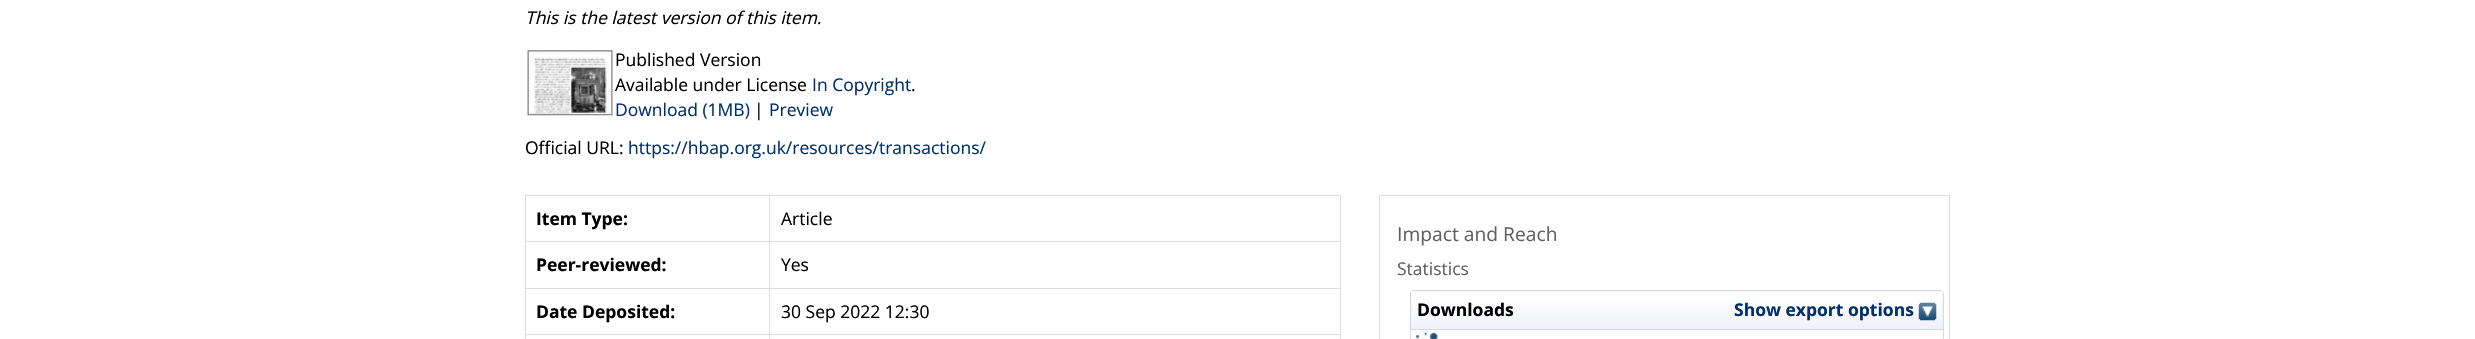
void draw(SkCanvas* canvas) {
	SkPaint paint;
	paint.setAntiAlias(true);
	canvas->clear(0xffffffff);
	SkFont f1(fontMgr->matchFamilyStyle("Open Sans", SkFontStyle::Italic()), 17.5);
	f1.setSubpixel(true);
	paint.setColor(0xff000000);
	canvas->drawString("This is the latest version of this item.", 525, 24, f1, paint);
	canvas->drawImageRect(SkImages::DeferredFromEncodedData(SkData::MakeFromFileName("img1.png")), SkRect::MakeXYWH(527, 50, 86, 66), SkSamplingOptions());
	SkFont f2(fontMgr->matchFamilyStyle("Open Sans", SkFontStyle::Normal()), 17.5);
	f2.setSubpixel(true);
	canvas->drawString("Published Version", 615, 66, f2, paint);
	canvas->drawString("Available under License", 615, 91, f2, paint);
	paint.setColor(0xff002f6c);
	canvas->drawString("In Copyright", 812, 91, f2, paint);
	paint.setColor(0xff000000);
	canvas->drawString(".", 911, 91, f2, paint);
	paint.setColor(0xff002f6c);
	canvas->drawString("Download (1MB)", 615, 116, f2, paint);
	paint.setColor(0xff000000);
	canvas->drawString("|", 754, 116, f2, paint);
	paint.setColor(0xff002f6c);
	canvas->drawString("Preview", 769, 116, f2, paint);
	paint.setColor(0xff000000);
	canvas->drawString("Official URL:", 525, 154, f2, paint);
	paint.setColor(0xff002f6c);
	canvas->drawString("https://hbap.org.uk/resources/transactions/", 628, 154, f2, paint);
	paint.setColor(0xffdddddd);
	canvas->drawRect(SkRect::MakeXYWH(525, 195, 816, 1), paint);
	canvas->drawRect(SkRect::MakeXYWH(1340, 195, 1, 144), paint);
	canvas->drawRect(SkRect::MakeXYWH(525, 195, 1, 144), paint);
	SkFont f3(fontMgr->matchFamilyStyle("Open Sans", SkFontStyle::Bold()), 17.5);
	f3.setSubpixel(true);
	paint.setColor(0xff000000);
	canvas->drawString("Item Type:", 536, 225, f3, paint);
	paint.setColor(0xffdddddd);
	canvas->drawRect(SkRect::MakeXYWH(769, 241, 572, 1), paint);
	canvas->drawRect(SkRect::MakeXYWH(769, 288, 572, 1), paint);
	canvas->drawRect(SkRect::MakeXYWH(769, 334, 572, 1), paint);
	canvas->drawRect(SkRect::MakeXYWH(769, 334, 1, 5), paint);
	canvas->drawRect(SkRect::MakeXYWH(525, 334, 245, 1), paint);
	canvas->drawRect(SkRect::MakeXYWH(769, 288, 1, 47), paint);
	canvas->drawRect(SkRect::MakeXYWH(525, 288, 245, 1), paint);
	canvas->drawRect(SkRect::MakeXYWH(769, 241, 1, 48), paint);
	canvas->drawRect(SkRect::MakeXYWH(525, 241, 245, 1), paint);
	canvas->drawRect(SkRect::MakeXYWH(769, 195, 1, 48), paint);
	paint.setColor(0xff000000);
	canvas->drawString("Article", 781, 225, f2, paint);
	canvas->drawString("Peer-reviewed:", 536, 271, f3, paint);
	canvas->drawString("Yes", 781, 271, f2, paint);
	canvas->drawString("Date Deposited:", 536, 318, f3, paint);
	canvas->drawString("30 Sep 2022 12:30", 781, 318, f2, paint);
	paint.setStroke(true);
	paint.setStrokeWidth(1);
	paint.setColor(0xffdddddd);
	canvas->drawRect(SkRect::MakeXYWH(1379.5, 195.5, 570, 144), paint);
	SkFont f4(fontMgr->matchFamilyStyle("Open Sans", SkFontStyle::Normal()), 19.25);
	f4.setSubpixel(true);
	paint.setStroke(false);
	paint.setColor(0xff606060);
	canvas->drawString("Impact and Reach", 1397, 241, f4, paint);
	canvas->drawString("Statistics", 1397, 275, f2, paint);
	paint.setStroke(true);
	paint.setColor(0xffd7d9e5);
	canvas->drawRoundRect(SkRect::MakeXYWH(1410.5, 290.5, 533, 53), 3.5, 3.5, paint);
	paint.setStroke(false);
	paint.setColor(0xffe7e9f5);
	canvas->drawRect(SkRect::MakeXYWH(1411, 291, 532, 38), paint);
	canvas->drawImageRect(SkImages::DeferredFromEncodedData(SkData::MakeFromFileName("img2.png")), SkRect::MakeXYWH(1411, 291, 532, 40), SkSamplingOptions());
	paint.setColor(0xffd7d9e5);
	canvas->drawRect(SkRect::MakeXYWH(1411, 329, 532, 1), paint);
	paint.setColor(0xff000000);
	canvas->drawString("Downloads", 1417, 316, f3, paint);
	paint.setColor(0xff002f6c);
	canvas->drawString("Show export options", 1734, 316, f3, paint);
	canvas->drawImageRect(SkImages::DeferredFromEncodedData(SkData::MakeFromFileName("img3.png")), SkRect::MakeXYWH(1918, 302, 19, 19), SkSamplingOptions());
	canvas->drawImageRect(SkImages::DeferredFromEncodedData(SkData::MakeFromFileName("img4.png")), SkRect::MakeXYWH(1415, 332, 23, 7), SkSamplingOptions());
}
